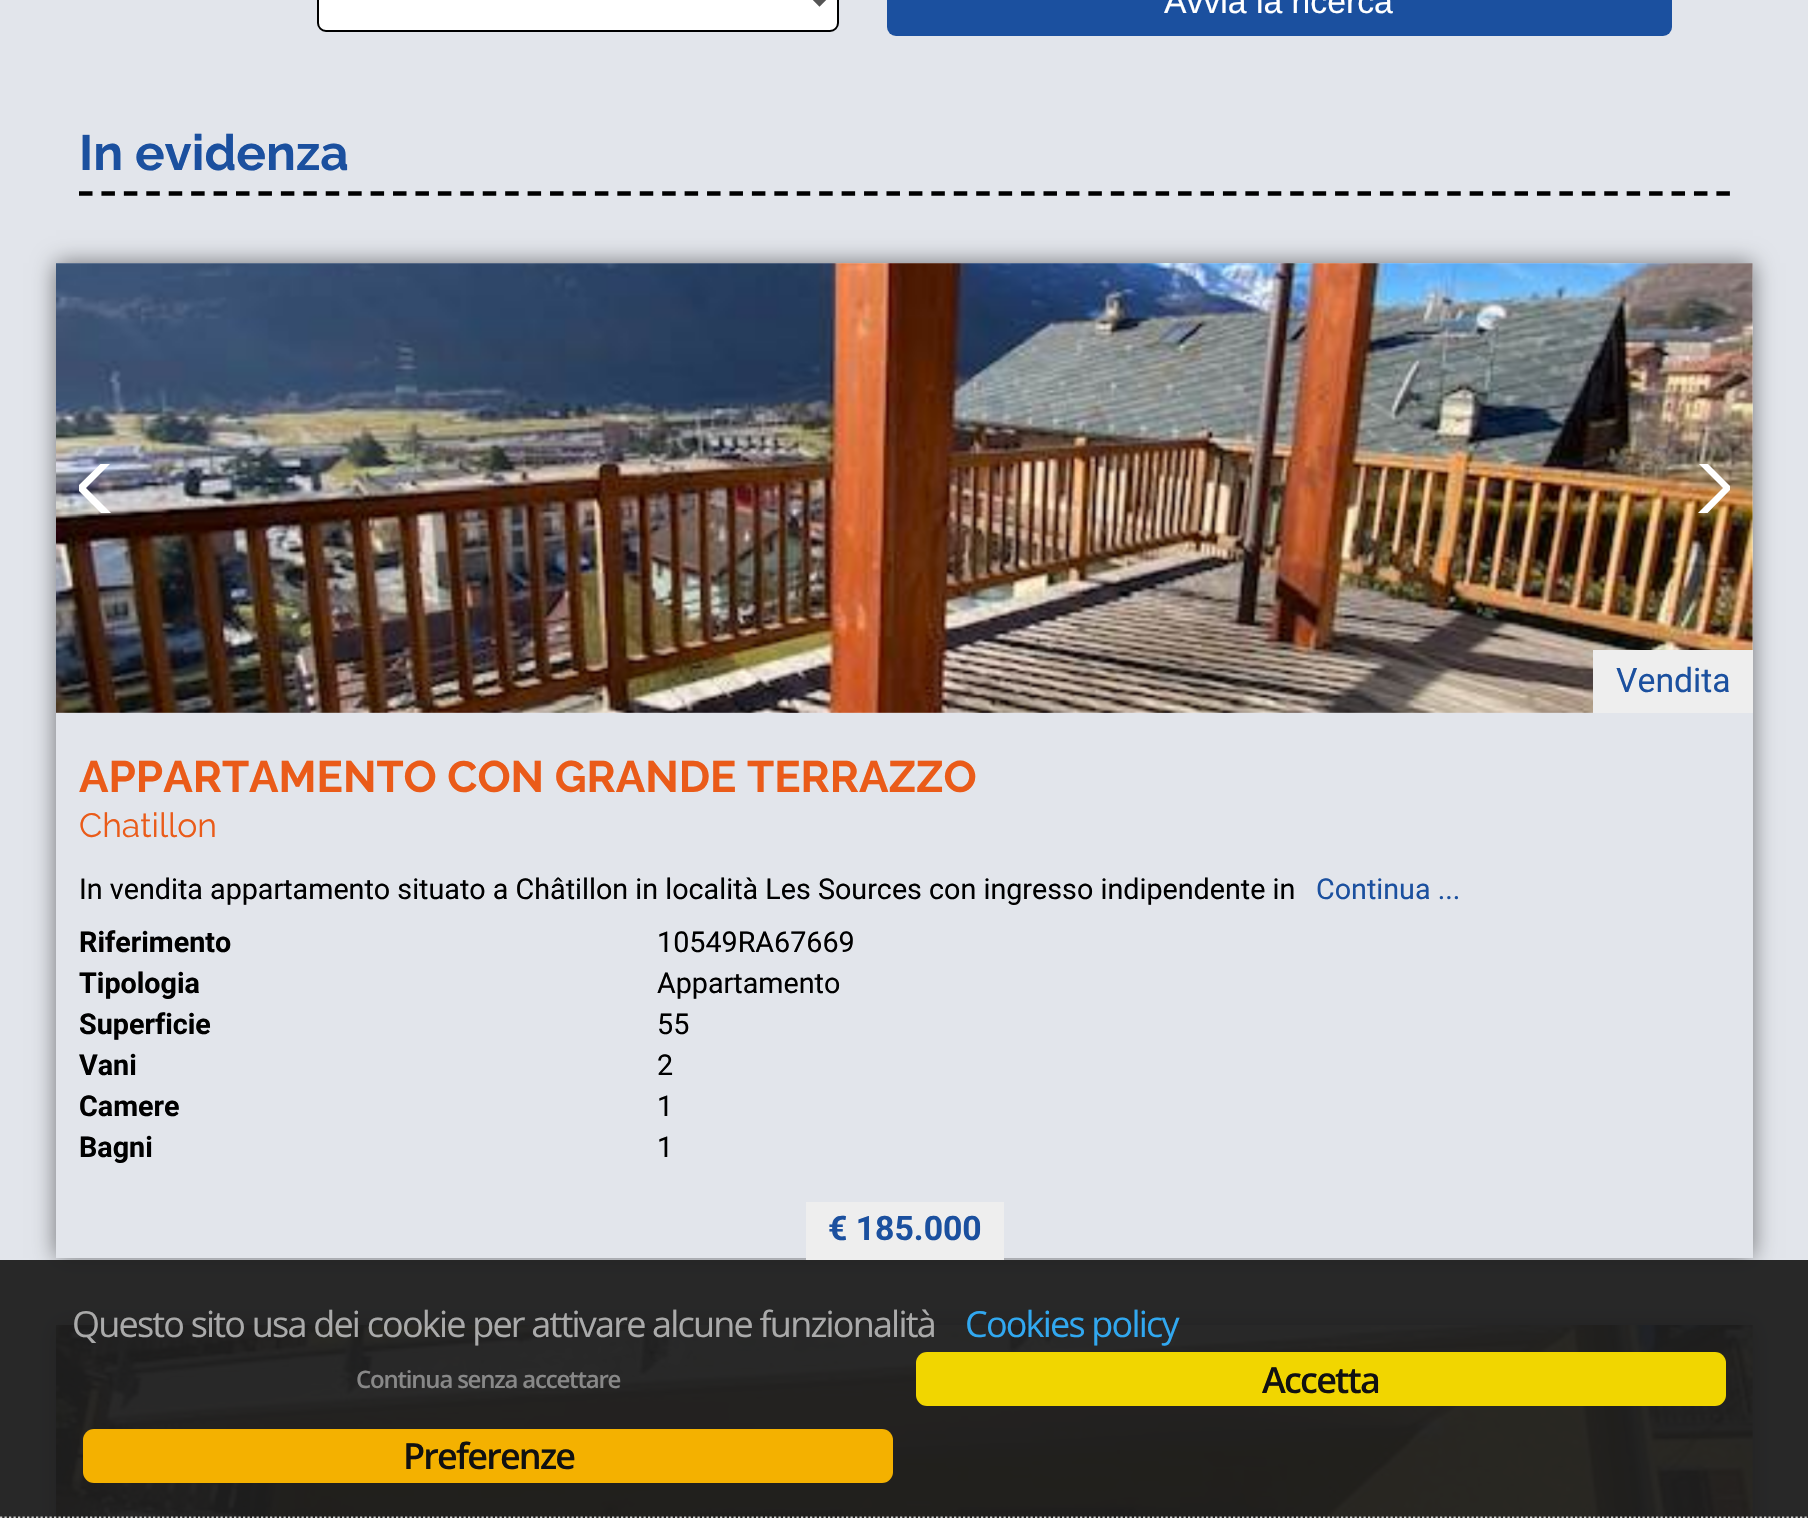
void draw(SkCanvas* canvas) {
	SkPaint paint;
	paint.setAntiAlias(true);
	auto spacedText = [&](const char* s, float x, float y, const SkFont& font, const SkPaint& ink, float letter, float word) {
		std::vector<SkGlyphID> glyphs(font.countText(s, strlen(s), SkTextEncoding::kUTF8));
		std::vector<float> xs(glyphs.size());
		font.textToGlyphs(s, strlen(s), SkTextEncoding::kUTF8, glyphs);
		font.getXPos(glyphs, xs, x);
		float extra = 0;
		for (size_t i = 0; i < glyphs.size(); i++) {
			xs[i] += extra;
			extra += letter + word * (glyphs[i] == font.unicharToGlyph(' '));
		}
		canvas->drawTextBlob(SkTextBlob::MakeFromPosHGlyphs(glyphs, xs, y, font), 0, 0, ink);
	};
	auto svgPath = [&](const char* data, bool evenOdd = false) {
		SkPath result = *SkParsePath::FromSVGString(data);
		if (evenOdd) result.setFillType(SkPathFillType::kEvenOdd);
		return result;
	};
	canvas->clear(0xffe2e5eb);
	paint.setColor(0xffffffff);
	canvas->drawRoundRect(SkRect::MakeXYWH(318, -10, 520, 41), 8, 8, paint);
	paint.setStroke(true);
	paint.setStrokeWidth(2);
	paint.setColor(0xff000000);
	canvas->drawRoundRect(SkRect::MakeXYWH(318, -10, 520, 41), 8, 8, paint);
	paint.setStrokeWidth(4.5);
	paint.setColor(0xff555555);
	canvas->drawPath(svgPath("M810.5-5.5L819.5 3.5L828.5-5.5"), paint);
	paint.setStroke(false);
	paint.setColor(0xff1b509f);
	canvas->drawRoundRect(SkRect::MakeXYWH(887, -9, 785, 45), 9, 9, paint);
	SkFont f1(fontMgr->matchFamilyStyle("Liberation Sans", SkFontStyle::Normal()), 33.75);
	f1.setSubpixel(true);
	paint.setColor(0xffffffff);
	canvas->drawString("Avvia la ricerca", 1164, 13, f1, paint);
	paint.setStroke(true);
	paint.setColor(0xff000000);
	paint.setPathEffect(SkDashPathEffect::Make({{13.5f, 8.93f}}, 0));
	canvas->drawPath(svgPath("M79 193.5H1730"), paint);
	paint.setPathEffect(nullptr);
	SkFont f2(fontMgr->matchFamilyStyle("Raleway", SkFontStyle::Bold()), 49.5);
	f2.setSubpixel(true);
	paint.setStroke(false);
	paint.setColor(0xff1b509f);
	canvas->drawString("In evidenza", 79, 170, f2, paint);
	canvas->save();
	canvas->clipPath(svgPath("M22 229H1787V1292H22ZM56 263H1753V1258H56Z", true), true);
	paint.setColor(0x80000000);
	paint.setMaskFilter(SkMaskFilter::MakeBlur(kNormal_SkBlurStyle, 11));
	canvas->drawRect(SkRect::MakeXYWH(56, 263, 1697, 995), paint);
	paint.setMaskFilter(nullptr);
	canvas->restore();
	canvas->drawImageRect(SkImages::DeferredFromEncodedData(SkData::MakeFromFileName("img1.png")), SkRect::MakeXYWH(56, 263, 1697, 450), SkSamplingOptions());
	canvas->save();
	canvas->clipRect(SkRect::MakeXYWH(79, 464, 56, 49));
	paint.setColor(0xffffffff);
	canvas->drawPath(svgPath("M76 488L126 439L131 443L86 488L131 533L126 538Z"), paint);
	canvas->restore();
	canvas->save();
	canvas->clipRect(SkRect::MakeXYWH(1674, 464, 56, 49));
	canvas->drawPath(svgPath("M1732 488L1683 538L1678 533L1723 488L1678 443L1683 439Z"), paint);
	canvas->restore();
	paint.setColor(0xffeeeeee);
	canvas->drawRect(SkRect::MakeXYWH(1593, 650, 160, 63), paint);
	SkFont f3(fontMgr->matchFamilyStyle("Roboto", SkFontStyle::Normal()), 33.75);
	f3.setSubpixel(true);
	paint.setColor(0xff1b509f);
	canvas->drawString("Vendita", 1616, 692, f3, paint);
	SkFont f4(fontMgr->matchFamilyStyle("Raleway", SkFontStyle::Bold()), 43.9);
	f4.setSubpixel(true);
	paint.setColor(0xffea5b19);
	canvas->drawString("APPARTAMENTO CON GRANDE TERRAZZO", 79, 792, f4, paint);
	SkFont f5(fontMgr->matchFamilyStyle("Raleway", SkFontStyle::Normal()), 33.75);
	f5.setSubpixel(true);
	canvas->drawString("Chatillon", 79, 837, f5, paint);
	SkFont f6(fontMgr->matchFamilyStyle("Roboto", SkFontStyle::Normal()), 28.7);
	f6.setSubpixel(true);
	paint.setColor(0xff000000);
	canvas->drawString("In vendita appartamento situato a Châtillon in località Les Sources con ingresso indipendente in", 79, 899, f6, paint);
	paint.setColor(0xff1b509f);
	canvas->drawString("Continua ...", 1316, 899, f6, paint);
	SkFont f7(fontMgr->matchFamilyStyle("Roboto", SkFontStyle::Bold()), 28.7);
	f7.setSubpixel(true);
	paint.setColor(0xff000000);
	canvas->drawString("Riferimento", 79, 952, f7, paint);
	canvas->drawString("10549RA67669", 657, 952, f6, paint);
	canvas->drawString("Tipologia", 79, 993, f7, paint);
	canvas->drawString("Appartamento", 657, 993, f6, paint);
	canvas->drawString("Superficie", 79, 1034, f7, paint);
	canvas->drawString("55", 657, 1034, f6, paint);
	canvas->drawString("Vani", 79, 1075, f7, paint);
	canvas->drawString("2", 657, 1075, f6, paint);
	canvas->drawString("Camere", 79, 1116, f7, paint);
	canvas->drawString("1", 657, 1116, f6, paint);
	canvas->drawString("Bagni", 79, 1157, f7, paint);
	canvas->drawString("1", 657, 1157, f6, paint);
	paint.setColor(0xffeeeeee);
	canvas->drawRect(SkRect::MakeXYWH(806, 1202, 198, 58), paint);
	SkFont f8(fontMgr->matchFamilyStyle("Roboto", SkFontStyle::Bold()), 33.75);
	f8.setSubpixel(true);
	paint.setColor(0xff1b509f);
	canvas->drawString("€ 185.000", 828, 1240, f8, paint);
	paint.setColor(0x80000000);
	paint.setMaskFilter(SkMaskFilter::MakeBlur(kNormal_SkBlurStyle, 11));
	canvas->drawRect(SkRect::MakeXYWH(56, 1325, 1697, 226), paint);
	paint.setMaskFilter(nullptr);
	canvas->drawImageRect(SkImages::DeferredFromEncodedData(SkData::MakeFromFileName("img2.png")), SkRect::MakeXYWH(56, 1325, 1697, 193), SkSamplingOptions());
	paint.setColor(0xf21d1d1d);
	canvas->drawRect(SkRect::MakeXYWH(0, 1260, 1808, 258), paint);
	paint.setStroke(true);
	paint.setStrokeWidth(2.2);
	paint.setColor(0xffcccccc);
	paint.setPathEffect(SkDashPathEffect::Make({{2.25f, 2.25f}}, 0));
	canvas->drawPath(svgPath("M0 1517.5H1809"), paint);
	paint.setPathEffect(nullptr);
	SkFont f9(fontMgr->matchFamilyStyle("Open Sans", SkFontStyle::Normal()), 36);
	f9.setSubpixel(true);
	paint.setStroke(false);
	paint.setColor(0xffaaaaaa);
	spacedText("Questo sito usa dei cookie per attivare alcune funzionalità", 72, 1337, f9, paint, -1.8, 0);
	paint.setColor(0xff31a8f0);
	spacedText("Cookies policy", 965, 1337, f9, paint, -1.8, 0);
	SkFont f10(fontMgr->matchFamilyStyle("Open Sans", SkFontStyle(600, SkFontStyle::kNormal_Width, SkFontStyle::kUpright_Slant)), 24);
	f10.setSubpixel(true);
	paint.setColor(0xff888888);
	spacedText("Continua senza accettare", 356, 1388, f10, paint, -1.2, 0);
	paint.setColor(0xfff1d600);
	canvas->drawRoundRect(SkRect::MakeXYWH(916, 1352, 810, 54), 11, 11, paint);
	SkFont f11(fontMgr->matchFamilyStyle("Open Sans", SkFontStyle(600, SkFontStyle::kNormal_Width, SkFontStyle::kUpright_Slant)), 36);
	f11.setSubpixel(true);
	paint.setColor(0xff111111);
	spacedText("Accetta", 1262, 1393, f11, paint, -1.8, 0);
	paint.setColor(0xfff4b100);
	canvas->drawRoundRect(SkRect::MakeXYWH(83, 1429, 810, 54), 11, 11, paint);
	paint.setColor(0xff111111);
	spacedText("Preferenze", 403, 1469, f11, paint, -1.8, 0);
}
